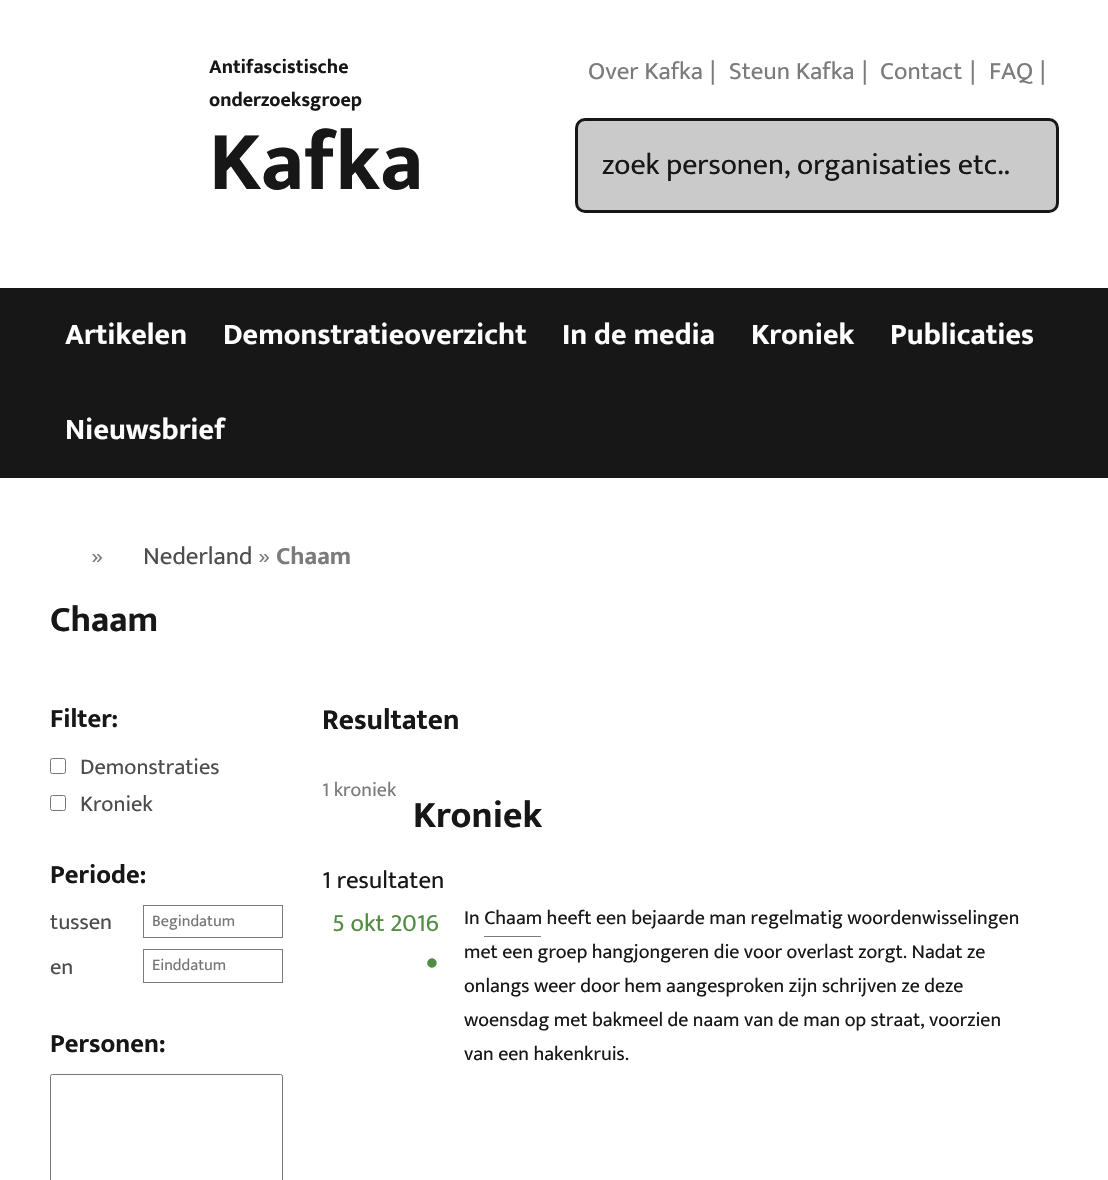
void draw(SkCanvas* canvas) {
	SkPaint paint;
	paint.setAntiAlias(true);
	canvas->clear(0xffffffff);
	SkFont f1(fontMgr->matchFamilyStyle("Ek Mukta", SkFontStyle::Bold()), 20);
	f1.setSubpixel(true);
	paint.setColor(0xff171717);
	canvas->drawString("Antifascistische", 209, 73, f1, paint);
	canvas->drawString("onderzoeksgroep", 209, 106, f1, paint);
	SkFont f2(fontMgr->matchFamilyStyle("Ek Mukta", SkFontStyle::Bold()), 85);
	f2.setSubpixel(true);
	canvas->drawString("Kafka", 209, 189, f2, paint);
	SkFont f3(fontMgr->matchFamilyStyle("Ek Mukta", SkFontStyle::Normal()), 25);
	f3.setSubpixel(true);
	paint.setColor(0xff7b7b7b);
	canvas->drawString("Over Kafka", 588, 79, f3, paint);
	canvas->drawString("|", 710, 79, f3, paint);
	canvas->drawString("Steun Kafka", 729, 79, f3, paint);
	canvas->drawString("|", 862, 79, f3, paint);
	canvas->drawString("Contact", 880, 79, f3, paint);
	canvas->drawString("|", 970, 79, f3, paint);
	canvas->drawString("FAQ", 989, 79, f3, paint);
	canvas->drawString("|", 1040, 79, f3, paint);
	paint.setColor(0xffcacaca);
	canvas->drawRoundRect(SkRect::MakeXYWH(576.5, 119.5, 481, 92), 8.5, 8.5, paint);
	paint.setStroke(true);
	paint.setStrokeWidth(3);
	paint.setColor(0xff171717);
	canvas->drawRoundRect(SkRect::MakeXYWH(576.5, 119.5, 481, 92), 8.5, 8.5, paint);
	SkFont f4(fontMgr->matchFamilyStyle("Ek Mukta", SkFontStyle::Normal()), 30);
	f4.setSubpixel(true);
	paint.setStroke(false);
	canvas->drawString("zoek personen, organisaties etc..", 602, 174, f4, paint);
	canvas->drawRect(SkRect::MakeXYWH(0, 288, 1108, 190), paint);
	SkFont f5(fontMgr->matchFamilyStyle("Ek Mukta", SkFontStyle::Bold()), 30);
	f5.setSubpixel(true);
	paint.setColor(0xffffffff);
	canvas->drawString("Artikelen", 65, 344, f5, paint);
	canvas->drawString("Demonstratieoverzicht", 223, 344, f5, paint);
	canvas->drawString("In de media", 562, 344, f5, paint);
	canvas->drawString("Kroniek", 751, 344, f5, paint);
	canvas->drawString("Publicaties", 890, 344, f5, paint);
	canvas->drawString("Nieuwsbrief", 65, 439, f5, paint);
	paint.setColor(0xff7b7b7b);
	canvas->drawString("»", 91, 564, f3, paint);
	paint.setColor(0xff4d4d4d);
	canvas->drawString("Nederland", 143, 564, f3, paint);
	paint.setColor(0xff7b7b7b);
	canvas->drawString("»", 258, 564, f3, paint);
	SkFont f6(fontMgr->matchFamilyStyle("Ek Mukta", SkFontStyle::Bold()), 25);
	f6.setSubpixel(true);
	canvas->drawString("Chaam", 276, 564, f6, paint);
	SkFont f7(fontMgr->matchFamilyStyle("Ek Mukta", SkFontStyle::Bold()), 36);
	f7.setSubpixel(true);
	paint.setColor(0xff171717);
	canvas->drawString("Chaam", 50, 631, f7, paint);
	SkFont f8(fontMgr->matchFamilyStyle("Ek Mukta", SkFontStyle::Bold()), 26.5);
	f8.setSubpixel(true);
	canvas->drawString("Filter:", 50, 727, f8, paint);
	paint.setStroke(true);
	paint.setStrokeWidth(1);
	paint.setColor(0xff767676);
	canvas->drawRoundRect(SkRect::MakeXYWH(50.5, 758.5, 15, 15), 2, 2, paint);
	SkFont f9(fontMgr->matchFamilyStyle("Ek Mukta", SkFontStyle::Normal()), 22.5);
	f9.setSubpixel(true);
	paint.setStroke(false);
	paint.setColor(0xff4d4d4d);
	canvas->drawString("Demonstraties", 80, 774, f9, paint);
	paint.setStroke(true);
	paint.setColor(0xff767676);
	canvas->drawRoundRect(SkRect::MakeXYWH(50.5, 795.5, 15, 15), 2, 2, paint);
	paint.setStroke(false);
	paint.setColor(0xff4d4d4d);
	canvas->drawString("Kroniek", 80, 811, f9, paint);
	paint.setColor(0xff171717);
	canvas->drawString("Periode:", 50, 883, f8, paint);
	paint.setColor(0xff4d4d4d);
	canvas->drawString("tussen", 50, 929, f9, paint);
	paint.setStroke(true);
	paint.setColor(0xff7b7b7b);
	canvas->drawRect(SkRect::MakeXYWH(143.5, 905.5, 139, 32), paint);
	SkFont f10(fontMgr->matchFamilyStyle("Ek Mukta", SkFontStyle::Normal()), 16.25);
	f10.setSubpixel(true);
	paint.setStroke(false);
	paint.setColor(0xff757575);
	canvas->drawString("Begindatum", 152, 926, f10, paint);
	paint.setColor(0xff4d4d4d);
	canvas->drawString("en", 50, 974, f9, paint);
	paint.setStroke(true);
	paint.setColor(0xff7b7b7b);
	canvas->drawRect(SkRect::MakeXYWH(143.5, 949.5, 139, 33), paint);
	paint.setStroke(false);
	paint.setColor(0xff757575);
	canvas->drawString("Einddatum", 152, 970, f10, paint);
	paint.setColor(0xff171717);
	canvas->drawString("Personen:", 50, 1052, f8, paint);
	paint.setStroke(true);
	paint.setColor(0xff767676);
	canvas->drawRoundRect(SkRect::MakeXYWH(50.5, 1074.5, 232, 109), 2, 2, paint);
	SkFont f11(fontMgr->matchFamilyStyle("Ek Mukta", SkFontStyle::Bold()), 29.25);
	f11.setSubpixel(true);
	paint.setStroke(false);
	paint.setColor(0xff171717);
	canvas->drawString("Resultaten", 322, 729, f11, paint);
	SkFont f12(fontMgr->matchFamilyStyle("Ek Mukta", SkFontStyle::Normal()), 20);
	f12.setSubpixel(true);
	paint.setColor(0xff7b7b7b);
	canvas->drawString("1 kroniek", 322, 796, f12, paint);
	SkFont f13(fontMgr->matchFamilyStyle("Ek Mukta", SkFontStyle::Bold()), 37.5);
	f13.setSubpixel(true);
	paint.setColor(0xff171717);
	canvas->drawString("Kroniek", 413, 827, f13, paint);
	canvas->drawString("1 resultaten", 322, 888, f3, paint);
	paint.setColor(0xff528c43);
	canvas->drawString("5 okt 2016", 332, 931, f3, paint);
	SkFont f14(fontMgr->matchFamilyStyle("Ek Mukta", SkFontStyle::Normal()), 37.5);
	f14.setSubpixel(true);
	canvas->drawString("•", 425, 973, f14, paint);
	paint.setColor(0xff171717);
	canvas->drawString("In Chaam heeft een bejaarde man regelmatig woordenwisselingen", 464, 924, f12, paint);
	paint.setColor(0xff7b7b7b);
	canvas->drawRect(SkRect::MakeXYWH(484, 936, 57, 1), paint);
	paint.setColor(0xff171717);
	canvas->drawString("met een groep hangjongeren die voor overlast zorgt. Nadat ze", 464, 958, f12, paint);
	canvas->drawString("onlangs weer door hem aangesproken zijn schrijven ze deze", 464, 992, f12, paint);
	canvas->drawString("woensdag met bakmeel de naam van de man op straat, voorzien", 464, 1026, f12, paint);
	canvas->drawString("van een hakenkruis.", 464, 1060, f12, paint);
}
